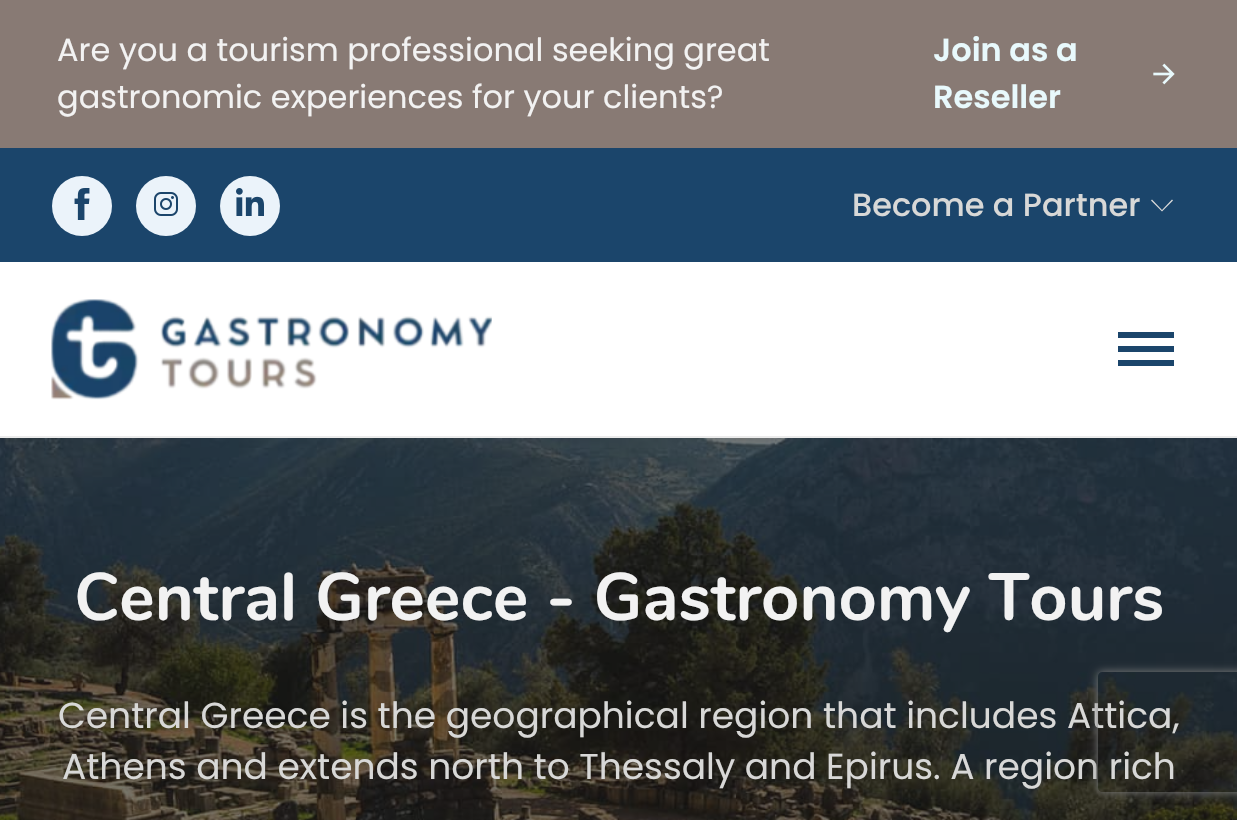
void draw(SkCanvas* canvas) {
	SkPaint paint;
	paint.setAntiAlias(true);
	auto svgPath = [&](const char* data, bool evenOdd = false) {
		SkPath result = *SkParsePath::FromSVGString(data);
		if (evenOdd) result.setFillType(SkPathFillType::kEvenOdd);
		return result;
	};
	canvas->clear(0xffffffff);
	paint.setColor(0xff887a74);
	canvas->drawRect(SkRect::MakeXYWH(0, 0, 1237, 148), paint);
	SkFont f1(fontMgr->matchFamilyStyle("Poppins", SkFontStyle::Normal()), 32);
	f1.setSubpixel(true);
	paint.setColor(0xfff2f2f2);
	canvas->drawString("Are you a tourism professional seeking great", 57, 61, f1, paint);
	canvas->drawString("gastronomic experiences for your clients?", 57, 108, f1, paint);
	SkFont f2(fontMgr->matchFamilyStyle("Poppins", SkFontStyle(600, SkFontStyle::kNormal_Width, SkFontStyle::kUpright_Slant)), 32);
	f2.setSubpixel(true);
	paint.setColor(0xffe8f9fc);
	canvas->drawString("Join as a", 933, 61, f2, paint);
	canvas->drawString("Reseller", 933, 108, f2, paint);
	canvas->drawImageRect(SkImages::DeferredFromEncodedData(SkData::MakeFromFileName("img1.png")), SkRect::MakeXYWH(1153, 63, 22, 22), SkSamplingOptions());
	paint.setColor(0xff1b456b);
	canvas->drawRect(SkRect::MakeXYWH(0, 148, 1237, 114), paint);
	paint.setColor(0xffebf3fa);
	canvas->drawCircle(82, 206, 30, paint);
	canvas->drawImageRect(SkImages::DeferredFromEncodedData(SkData::MakeFromFileName("img2.png")), SkRect::MakeXYWH(74, 188, 16, 32), SkSamplingOptions());
	canvas->drawCircle(166, 206, 30, paint);
	canvas->drawImageRect(SkImages::DeferredFromEncodedData(SkData::MakeFromFileName("img3.png")), SkRect::MakeXYWH(154, 192, 24, 24), SkSamplingOptions());
	canvas->drawCircle(250, 206, 30, paint);
	canvas->drawImageRect(SkImages::DeferredFromEncodedData(SkData::MakeFromFileName("img4.png")), SkRect::MakeXYWH(236, 188, 28, 28), SkSamplingOptions());
	SkFont f3(fontMgr->matchFamilyStyle("Poppins", SkFontStyle(500, SkFontStyle::kNormal_Width, SkFontStyle::kUpright_Slant)), 32);
	f3.setSubpixel(true);
	paint.setColor(0xffd8d8d7);
	canvas->drawString("Become a Partner", 852, 216, f3, paint);
	paint.setColor(0xffd9d9d9);
	canvas->drawPath(svgPath("M1173 200.5L1162 211.5L1151 200.5L1152 199.5L1162 210L1172 199.5Z"), paint);
	paint.setColor(0xffebebeb);
	canvas->drawRect(SkRect::MakeXYWH(0, 436, 1237, 2), paint);
	canvas->drawImageRect(SkImages::DeferredFromEncodedData(SkData::MakeFromFileName("img5.png")), SkRect::MakeXYWH(51, 299, 441, 101), SkSamplingOptions());
	paint.setColor(0xff1b456b);
	canvas->drawRect(SkRect::MakeXYWH(1118, 346, 56, 6), paint);
	canvas->drawRect(SkRect::MakeXYWH(1118, 332, 56, 6), paint);
	canvas->drawRect(SkRect::MakeXYWH(1118, 360, 56, 6), paint);
	canvas->drawImageRect(SkImages::DeferredFromEncodedData(SkData::MakeFromFileName("img6.png")), SkRect::MakeXYWH(0, 438, 1237, 382), SkSamplingOptions());
	SkFont f4(fontMgr->matchFamilyStyle("Nunito", SkFontStyle::Bold()), 66.75);
	f4.setSubpixel(true);
	paint.setColor(0xfff2f2f2);
	canvas->drawString("Central Greece - Gastronomy Tours", 74, 620, f4, paint);
	SkFont f5(fontMgr->matchFamilyStyle("Poppins", SkFontStyle::Normal()), 36);
	f5.setSubpixel(true);
	paint.setColor(0xffd8d8d7);
	canvas->drawString("Central Greece is the geographical region that includes Attica,", 58, 728, f5, paint);
	canvas->drawString("Athens and extends north to Thessaly and Epirus. A region rich", 62, 779, f5, paint);
	canvas->save();
	canvas->clipPath(svgPath("M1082 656H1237V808H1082ZM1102 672H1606C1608 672 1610 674 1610 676V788C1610 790 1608 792 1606 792H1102C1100 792 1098 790 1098 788V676C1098 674 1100 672 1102 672Z", true), true);
	paint.setColor(0xff808080);
	paint.setMaskFilter(SkMaskFilter::MakeBlur(kNormal_SkBlurStyle, 5));
	canvas->drawRoundRect(SkRect::MakeXYWH(1098, 672, 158, 120), 4, 4, paint);
	paint.setMaskFilter(nullptr);
	canvas->restore();
}
